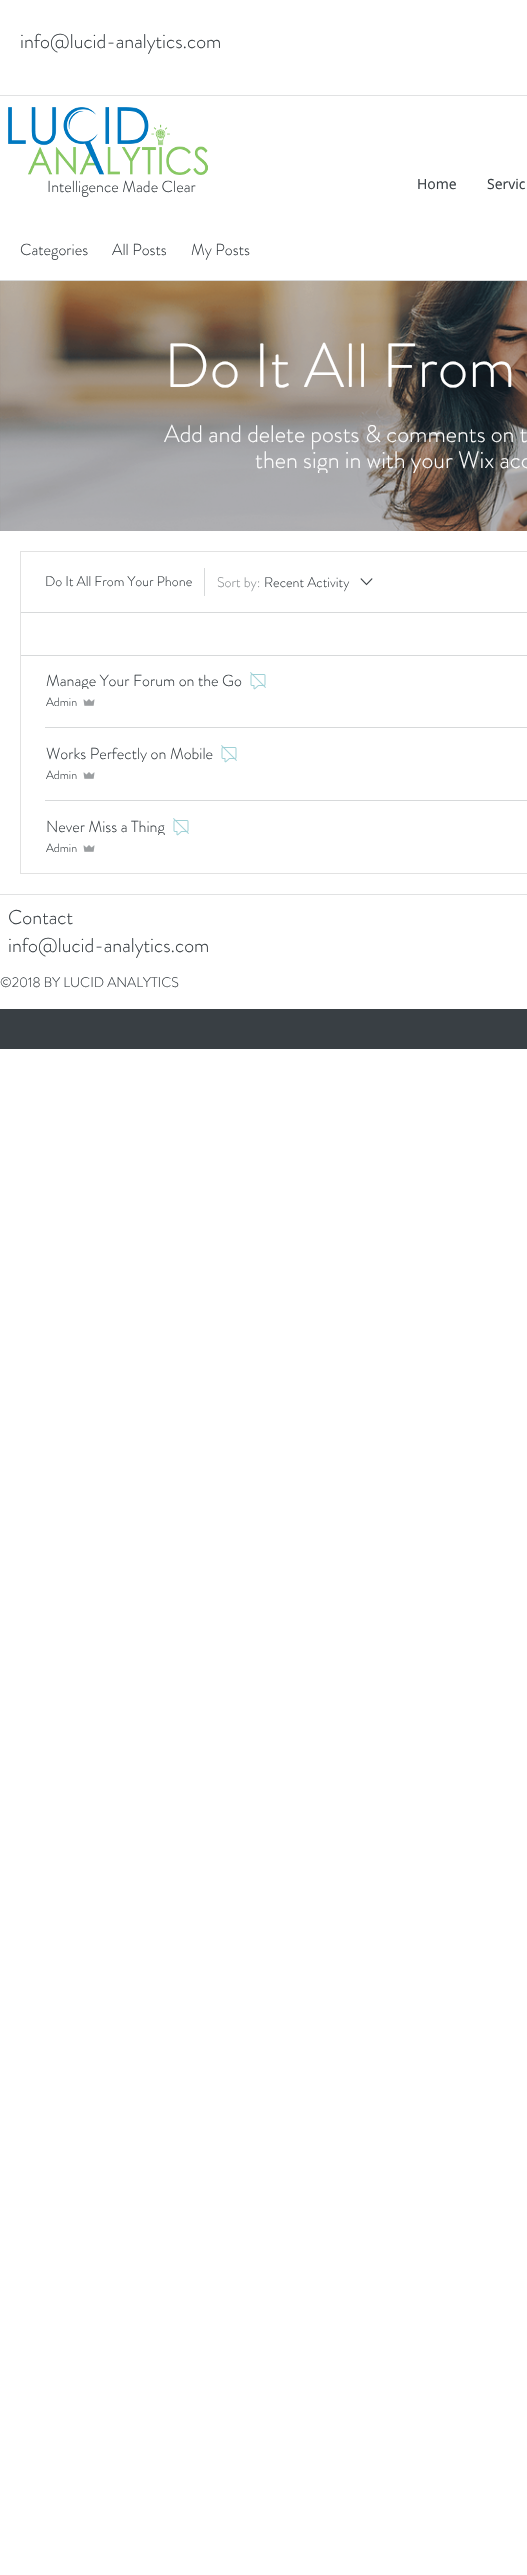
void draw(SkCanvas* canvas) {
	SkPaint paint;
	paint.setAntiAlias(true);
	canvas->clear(0xffffffff);
	SkFont f1(fontMgr->matchFamilyStyle("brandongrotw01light", SkFontStyle(300, SkFontStyle::kNormal_Width, SkFontStyle::kUpright_Slant)), 20);
	f1.setSubpixel(true);
	paint.setColor(0xff393f44);
	canvas->drawString("info@lucid-analytics.com", 20, 48, f1, paint);
	paint.setColor(0xffe1e2e3);
	canvas->drawRect(SkRect::MakeXYWH(0, 95, 527, 1), paint);
	canvas->drawImageRect(SkImages::DeferredFromEncodedData(SkData::MakeFromFileName("img1.png")), SkRect::MakeXYWH(8, 107, 200, 68), SkSamplingOptions());
	SkFont f2(fontMgr->matchFamilyStyle("brandongrotw01light", SkFontStyle(300, SkFontStyle::kNormal_Width, SkFontStyle::kUpright_Slant)), 16);
	f2.setSubpixel(true);
	paint.setColor(0xff393f44);
	canvas->drawString("Intelligence Made Clear", 47, 192, f2, paint);
	SkFont f3(fontMgr->matchFamilyStyle("Open Sans", SkFontStyle::Normal()), 14);
	f3.setSubpixel(true);
	canvas->drawString("Home", 417, 189, f3, paint);
	canvas->drawString("Servic", 487, 189, f3, paint);
	paint.setColor(0xffd7d9da);
	canvas->drawRect(SkRect::MakeXYWH(0, 280, 527, 1), paint);
	paint.setColor(0xff393f44);
	canvas->drawString("Categories", 20, 255, f2, paint);
	canvas->drawString("All Posts", 112, 255, f2, paint);
	canvas->drawString("My Posts", 191, 255, f2, paint);
	canvas->drawImageRect(SkImages::DeferredFromEncodedData(SkData::MakeFromFileName("img2.png")), SkRect::MakeXYWH(0, 281, 527, 250), SkSamplingOptions());
	SkFont f4(fontMgr->matchFamilyStyle("brandongrotw01light", SkFontStyle(300, SkFontStyle::kNormal_Width, SkFontStyle::kUpright_Slant)), 62);
	f4.setSubpixel(true);
	paint.setColor(0xffffffff);
	canvas->drawString("Do It All From", 164, 387, f4, paint);
	SkFont f5(fontMgr->matchFamilyStyle("brandongrotw01light", SkFontStyle(300, SkFontStyle::kNormal_Width, SkFontStyle::kUpright_Slant)), 24);
	f5.setSubpixel(true);
	canvas->drawString("Add and delete posts & comments on t", 164, 442, f5, paint);
	canvas->save();
	canvas->clipRect(SkRect::MakeXYWH(150, 421, 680, 52));
	canvas->drawString("then sign in with your Wix acc", 255, 468, f5, paint);
	canvas->restore();
	paint.setStroke(true);
	paint.setStrokeWidth(1);
	paint.setColor(0xffe2e2e2);
	canvas->drawRect(SkRect::MakeXYWH(20.5, 551.5, 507, 322), paint);
	SkFont f6(fontMgr->matchFamilyStyle("brandongrotw01light", SkFontStyle(300, SkFontStyle::kNormal_Width, SkFontStyle::kUpright_Slant)), 14);
	f6.setSubpixel(true);
	paint.setStroke(false);
	paint.setColor(0xff393f44);
	canvas->drawString("Do It All From Your Phone", 45, 586, f6, paint);
	paint.setColor(0xffd7d9da);
	canvas->drawRect(SkRect::MakeXYWH(204, 568, 1, 28), paint);
	paint.setColor(0xff888c8f);
	canvas->drawString("Sort by:", 217, 587, f6, paint);
	paint.setColor(0xff393f44);
	canvas->drawString("Recent Activity", 264, 587, f6, paint);
	canvas->drawImageRect(SkImages::DeferredFromEncodedData(SkData::MakeFromFileName("img3.png")), SkRect::MakeXYWH(360, 578, 13, 8), SkSamplingOptions());
	paint.setColor(0xffd7d9da);
	canvas->drawRect(SkRect::MakeXYWH(21, 612, 506, 1), paint);
	canvas->drawRect(SkRect::MakeXYWH(21, 655, 506, 1), paint);
	canvas->save();
	canvas->clipRect(SkRect::MakeXYWH(46, 673, 196, 16));
	paint.setColor(0xff393f44);
	canvas->drawString("Manage Your Forum on the Go", 46, 686, f2, paint);
	canvas->restore();
	canvas->drawImageRect(SkImages::DeferredFromEncodedData(SkData::MakeFromFileName("img4.png")), SkRect::MakeXYWH(250, 672, 16, 18), SkSamplingOptions());
	SkFont f7(fontMgr->matchFamilyStyle("brandongrotw01light", SkFontStyle(300, SkFontStyle::kNormal_Width, SkFontStyle::kUpright_Slant)), 12);
	f7.setSubpixel(true);
	canvas->drawString("Admin", 46, 706, f7, paint);
	canvas->drawImageRect(SkImages::DeferredFromEncodedData(SkData::MakeFromFileName("img5.png")), SkRect::MakeXYWH(83, 699, 12, 7), SkSamplingOptions());
	paint.setColor(0xffd7d9da);
	canvas->drawRect(SkRect::MakeXYWH(45, 727, 482, 1), paint);
	canvas->save();
	canvas->clipRect(SkRect::MakeXYWH(46, 746, 167, 16));
	paint.setColor(0xff393f44);
	canvas->drawString("Works Perfectly on Mobile", 46, 759, f2, paint);
	canvas->restore();
	canvas->drawImageRect(SkImages::DeferredFromEncodedData(SkData::MakeFromFileName("img4.png")), SkRect::MakeXYWH(221, 745, 16, 18), SkSamplingOptions());
	canvas->drawString("Admin", 46, 779, f7, paint);
	canvas->drawImageRect(SkImages::DeferredFromEncodedData(SkData::MakeFromFileName("img5.png")), SkRect::MakeXYWH(83, 772, 12, 7), SkSamplingOptions());
	paint.setColor(0xffd7d9da);
	canvas->drawRect(SkRect::MakeXYWH(45, 800, 482, 1), paint);
	canvas->save();
	canvas->clipRect(SkRect::MakeXYWH(46, 819, 119, 16));
	paint.setColor(0xff393f44);
	canvas->drawString("Never Miss a Thing", 46, 832, f2, paint);
	canvas->restore();
	canvas->drawImageRect(SkImages::DeferredFromEncodedData(SkData::MakeFromFileName("img4.png")), SkRect::MakeXYWH(173, 818, 16, 18), SkSamplingOptions());
	canvas->drawString("Admin", 46, 852, f7, paint);
	canvas->drawImageRect(SkImages::DeferredFromEncodedData(SkData::MakeFromFileName("img5.png")), SkRect::MakeXYWH(83, 845, 12, 7), SkSamplingOptions());
	paint.setColor(0xffe1e2e3);
	canvas->drawRect(SkRect::MakeXYWH(0, 894, 527, 1), paint);
	paint.setColor(0xff393f44);
	canvas->drawString("Contact", 8, 924, f1, paint);
	canvas->drawString("info@lucid-analytics.com", 8, 952, f1, paint);
	canvas->drawString("©2018 BY LUCID ANALYTICS", 0, 987, f6, paint);
	canvas->drawRect(SkRect::MakeXYWH(0, 1009, 527, 40), paint);
}
